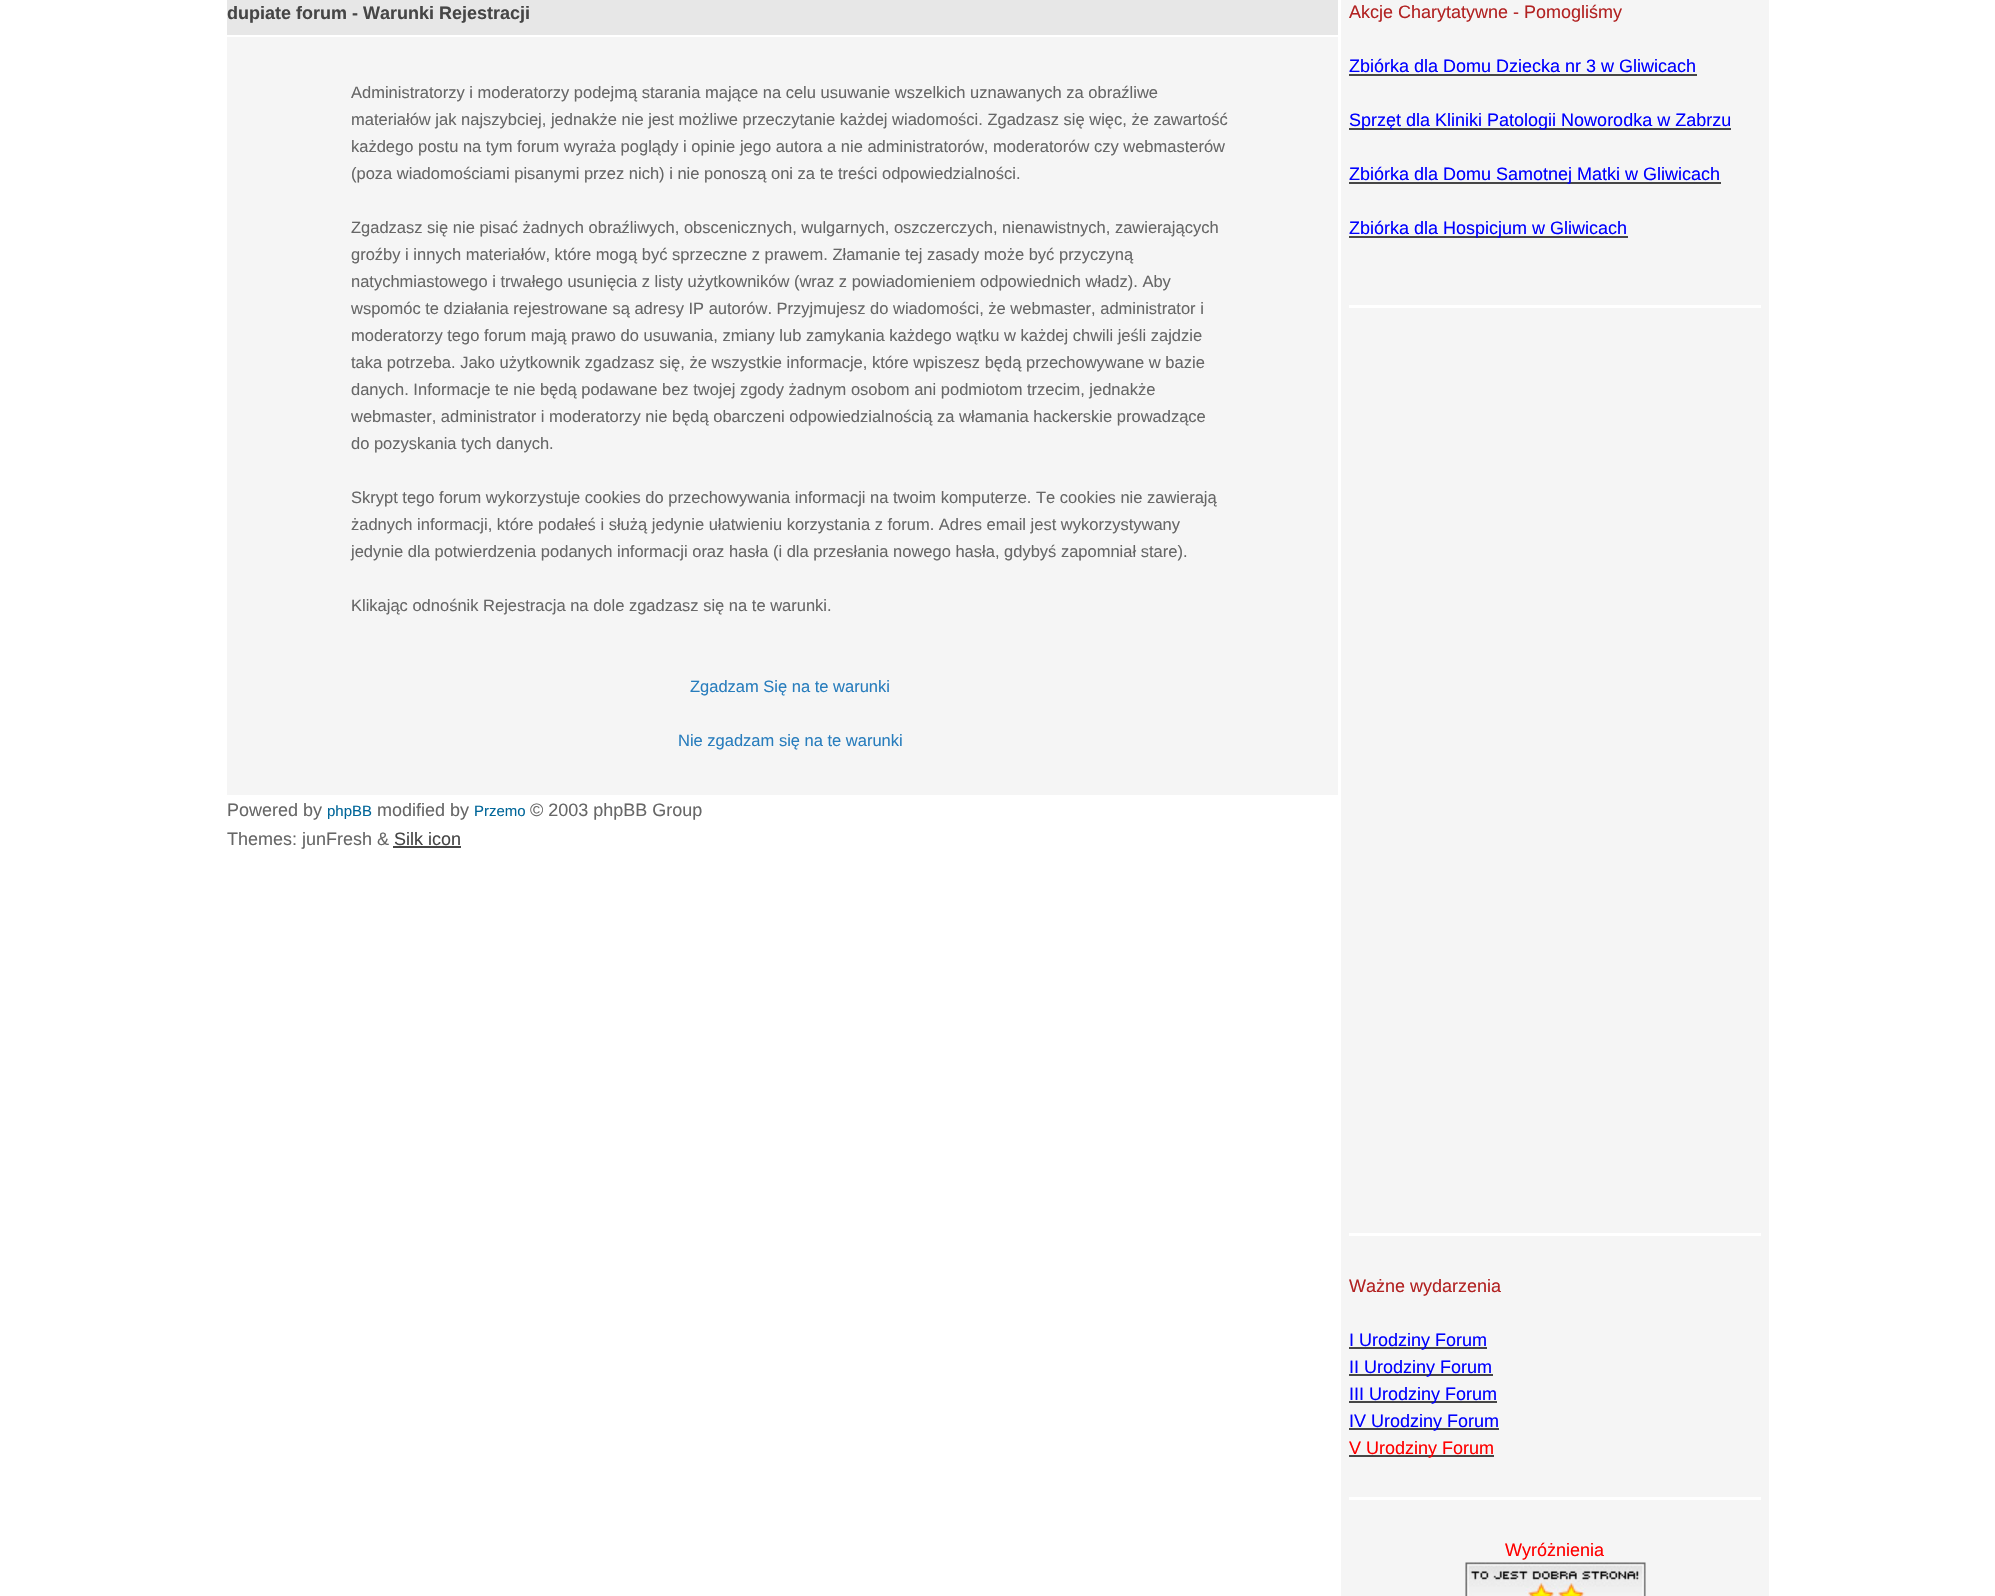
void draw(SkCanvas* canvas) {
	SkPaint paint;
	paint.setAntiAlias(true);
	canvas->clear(0xffffffff);
	paint.setColor(0xffe7e7e7);
	canvas->drawRect(SkRect::MakeXYWH(227, 0, 1111, 35), paint);
	SkFont f1(fontMgr->matchFamilyStyle("Liberation Sans", SkFontStyle::Bold()), 18);
	f1.setSubpixel(true);
	paint.setColor(0xff464646);
	canvas->drawString("dupiate forum - Warunki Rejestracji", 227, 19, f1, paint);
	paint.setColor(0xfff5f5f5);
	canvas->drawRect(SkRect::MakeXYWH(227, 37, 1111, 758), paint);
	SkFont f2(fontMgr->matchFamilyStyle("Liberation Sans", SkFontStyle::Normal()), 16.5);
	f2.setSubpixel(true);
	paint.setColor(0xff676767);
	canvas->drawString("Administratorzy i moderatorzy podejmą starania mające na celu usuwanie wszelkich uznawanych za obraźliwe", 351, 98, f2, paint);
	canvas->drawString("materiałów jak najszybciej, jednakże nie jest możliwe przeczytanie każdej wiadomości. Zgadzasz się więc, że zawartość", 351, 125, f2, paint);
	canvas->drawString("każdego postu na tym forum wyraża poglądy i opinie jego autora a nie administratorów, moderatorów czy webmasterów", 351, 152, f2, paint);
	canvas->drawString("(poza wiadomościami pisanymi przez nich) i nie ponoszą oni za te treści odpowiedzialności.", 351, 179, f2, paint);
	canvas->drawString("Zgadzasz się nie pisać żadnych obraźliwych, obscenicznych, wulgarnych, oszczerczych, nienawistnych, zawierających", 351, 233, f2, paint);
	canvas->drawString("groźby i innych materiałów, które mogą być sprzeczne z prawem. Złamanie tej zasady może być przyczyną", 351, 260, f2, paint);
	canvas->drawString("natychmiastowego i trwałego usunięcia z listy użytkowników (wraz z powiadomieniem odpowiednich władz). Aby", 351, 287, f2, paint);
	canvas->drawString("wspomóc te działania rejestrowane są adresy IP autorów. Przyjmujesz do wiadomości, że webmaster, administrator i", 351, 314, f2, paint);
	canvas->drawString("moderatorzy tego forum mają prawo do usuwania, zmiany lub zamykania każdego wątku w każdej chwili jeśli zajdzie", 351, 341, f2, paint);
	canvas->drawString("taka potrzeba. Jako użytkownik zgadzasz się, że wszystkie informacje, które wpiszesz będą przechowywane w bazie", 351, 368, f2, paint);
	canvas->drawString("danych. Informacje te nie będą podawane bez twojej zgody żadnym osobom ani podmiotom trzecim, jednakże", 351, 395, f2, paint);
	canvas->drawString("webmaster, administrator i moderatorzy nie będą obarczeni odpowiedzialnością za włamania hackerskie prowadzące", 351, 422, f2, paint);
	canvas->drawString("do pozyskania tych danych.", 351, 449, f2, paint);
	canvas->drawString("Skrypt tego forum wykorzystuje cookies do przechowywania informacji na twoim komputerze. Te cookies nie zawierają", 351, 503, f2, paint);
	canvas->drawString("żadnych informacji, które podałeś i służą jedynie ułatwieniu korzystania z forum. Adres email jest wykorzystywany", 351, 530, f2, paint);
	canvas->drawString("jedynie dla potwierdzenia podanych informacji oraz hasła (i dla przesłania nowego hasła, gdybyś zapomniał stare).", 351, 557, f2, paint);
	canvas->drawString("Klikając odnośnik Rejestracja na dole zgadzasz się na te warunki.", 351, 611, f2, paint);
	paint.setColor(0xff287dbd);
	canvas->drawString("Zgadzam Się na te warunki", 690, 692, f2, paint);
	canvas->drawString("Nie zgadzam się na te warunki", 678, 746, f2, paint);
	SkFont f3(fontMgr->matchFamilyStyle("Liberation Sans", SkFontStyle::Normal()), 18);
	f3.setSubpixel(true);
	paint.setColor(0xff676767);
	canvas->drawString("Powered by", 227, 816, f3, paint);
	SkFont f4(fontMgr->matchFamilyStyle("Liberation Sans", SkFontStyle::Normal()), 15);
	f4.setSubpixel(true);
	paint.setColor(0xff006699);
	canvas->drawString("phpBB", 327, 816, f4, paint);
	paint.setColor(0xff676767);
	canvas->drawString("modified by", 377, 816, f3, paint);
	paint.setColor(0xff006699);
	canvas->drawString("Przemo", 474, 816, f4, paint);
	paint.setColor(0xff676767);
	canvas->drawString("© 2003 phpBB Group", 530, 816, f3, paint);
	canvas->drawString("Themes: junFresh &", 227, 845, f3, paint);
	paint.setColor(0xff464646);
	canvas->drawString("Silk icon", 394, 845, f3, paint);
	canvas->drawRect(SkRect::MakeXYWH(393, 846, 68, 2), paint);
	paint.setColor(0xfff5f5f5);
	canvas->drawRect(SkRect::MakeXYWH(1341, 0, 428, 1596), paint);
	paint.setColor(0xffb22222);
	canvas->drawString("Akcje Charytatywne - Pomogliśmy", 1349, 18, f3, paint);
	paint.setColor(0xff0000ff);
	canvas->drawString("Zbiórka dla Domu Dziecka nr 3 w Gliwicach", 1349, 72, f3, paint);
	paint.setColor(0xff464646);
	canvas->drawRect(SkRect::MakeXYWH(1349, 74, 348, 2), paint);
	canvas->drawRect(SkRect::MakeXYWH(1349, 128, 382, 2), paint);
	paint.setColor(0xff0000ff);
	canvas->drawString("Sprzęt dla Kliniki Patologii Noworodka w Zabrzu", 1349, 126, f3, paint);
	paint.setColor(0xff464646);
	canvas->drawRect(SkRect::MakeXYWH(1349, 182, 372, 2), paint);
	paint.setColor(0xff0000ff);
	canvas->drawString("Zbiórka dla Domu Samotnej Matki w Gliwicach", 1349, 180, f3, paint);
	paint.setColor(0xff464646);
	canvas->drawRect(SkRect::MakeXYWH(1349, 236, 279, 2), paint);
	paint.setColor(0xff0000ff);
	canvas->drawString("Zbiórka dla Hospicjum w Gliwicach", 1349, 234, f3, paint);
	paint.setColor(0xffffffff);
	canvas->drawRect(SkRect::MakeXYWH(1349, 305, 412, 3), paint);
	canvas->drawRect(SkRect::MakeXYWH(1349, 1233, 412, 3), paint);
	paint.setColor(0xffb22222);
	canvas->drawString("Ważne wydarzenia", 1349, 1292, f3, paint);
	paint.setColor(0xff464646);
	canvas->drawRect(SkRect::MakeXYWH(1349, 1347, 138, 2), paint);
	paint.setColor(0xff0000ff);
	canvas->drawString("I Urodziny Forum", 1349, 1346, f3, paint);
	paint.setColor(0xff464646);
	canvas->drawRect(SkRect::MakeXYWH(1349, 1374, 144, 2), paint);
	paint.setColor(0xff0000ff);
	canvas->drawString("II Urodziny Forum", 1349, 1373, f3, paint);
	paint.setColor(0xff464646);
	canvas->drawRect(SkRect::MakeXYWH(1349, 1401, 148, 2), paint);
	paint.setColor(0xff0000ff);
	canvas->drawString("III Urodziny Forum", 1349, 1400, f3, paint);
	paint.setColor(0xff464646);
	canvas->drawRect(SkRect::MakeXYWH(1349, 1428, 150, 2), paint);
	paint.setColor(0xff0000ff);
	canvas->drawString("IV Urodziny Forum", 1349, 1427, f3, paint);
	paint.setColor(0xff464646);
	canvas->drawRect(SkRect::MakeXYWH(1349, 1455, 145, 2), paint);
	paint.setColor(0xffff0000);
	canvas->drawString("V Urodziny Forum", 1349, 1454, f3, paint);
	paint.setColor(0xffffffff);
	canvas->drawRect(SkRect::MakeXYWH(1349, 1497, 412, 3), paint);
	paint.setColor(0xffff0000);
	canvas->drawString("Wyróżnienia", 1505, 1556, f3, paint);
	canvas->drawImageRect(SkImages::DeferredFromEncodedData(SkData::MakeFromFileName("img1.png")), SkRect::MakeXYWH(1465, 1562, 181, 34), SkSamplingOptions());
}
